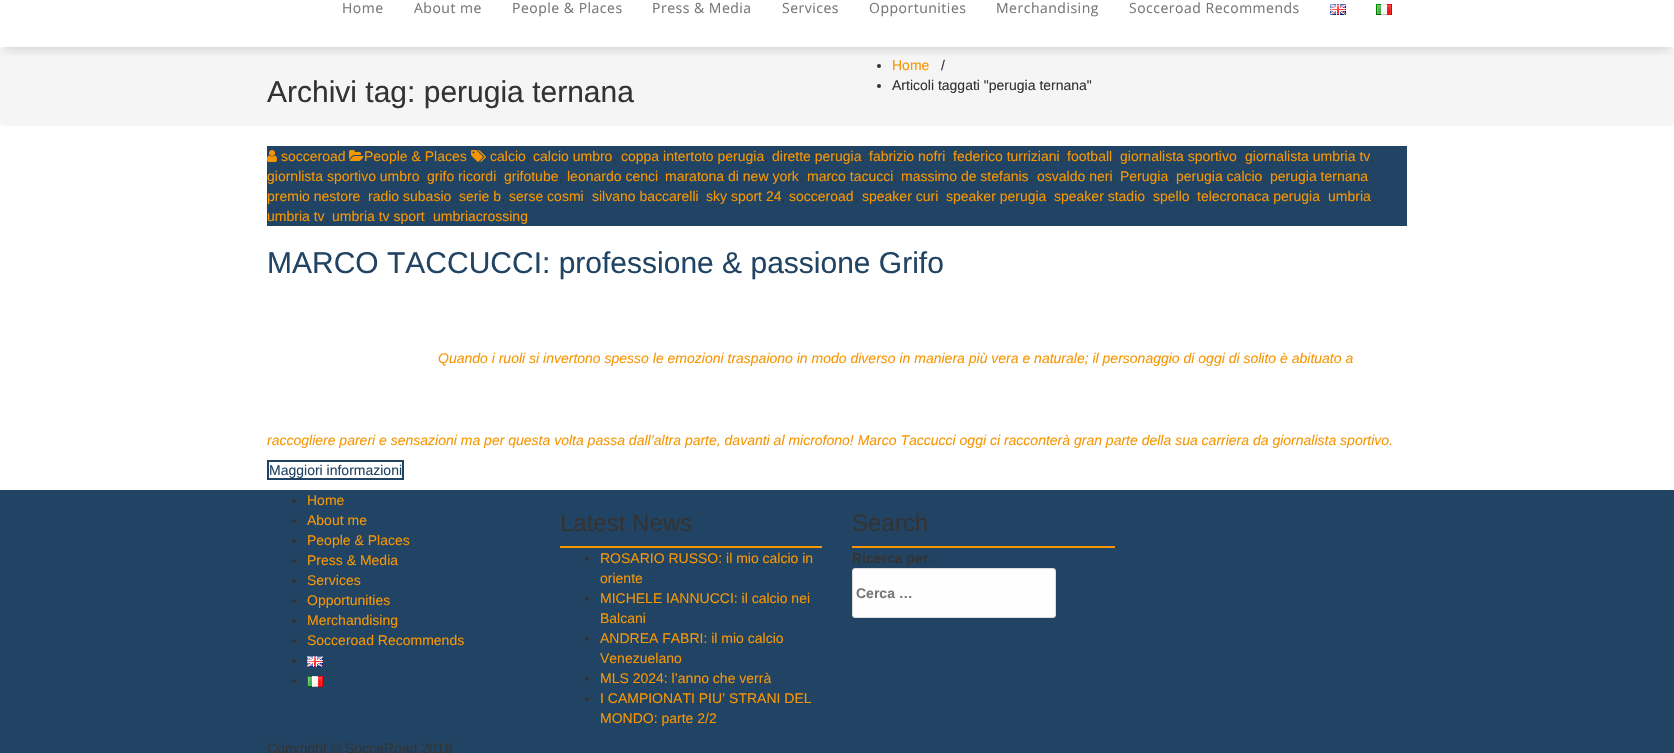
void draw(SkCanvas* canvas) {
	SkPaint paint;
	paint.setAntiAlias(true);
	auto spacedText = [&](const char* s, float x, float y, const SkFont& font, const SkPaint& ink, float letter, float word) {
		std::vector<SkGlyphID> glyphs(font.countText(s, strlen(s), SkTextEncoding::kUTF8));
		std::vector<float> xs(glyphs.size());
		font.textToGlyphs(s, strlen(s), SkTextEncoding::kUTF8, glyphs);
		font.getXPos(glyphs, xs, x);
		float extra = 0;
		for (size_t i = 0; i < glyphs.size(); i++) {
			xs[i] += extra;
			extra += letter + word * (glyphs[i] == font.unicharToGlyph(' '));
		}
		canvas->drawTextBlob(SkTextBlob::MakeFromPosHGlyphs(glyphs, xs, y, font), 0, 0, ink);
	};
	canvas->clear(0xffffffff);
	paint.setColor(0xfff5f5f5);
	canvas->drawRoundRect(SkRect::MakeXYWH(0, 47, 1674, 79), 4, 4, paint);
	canvas->save();
	canvas->clipRect(SkRect::MakeXYWH(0, 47, 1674, 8));
	paint.setColor(0x2e000000);
	paint.setMaskFilter(SkMaskFilter::MakeBlur(kNormal_SkBlurStyle, 6));
	canvas->drawRect(SkRect::MakeXYWH(5, -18, 1664, 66), paint);
	paint.setMaskFilter(nullptr);
	canvas->restore();
	SkFont f1(fontMgr->matchFamilyStyle("Open Sans", SkFontStyle::Normal()), 14);
	f1.setSubpixel(true);
	paint.setColor(0xff777777);
	spacedText("Home", 342, 13, f1, paint, 0.5, 0);
	spacedText("About me", 414, 13, f1, paint, 0.5, 0);
	spacedText("People & Places", 512, 13, f1, paint, 0.5, 0);
	spacedText("Press & Media", 652, 13, f1, paint, 0.5, 0);
	spacedText("Services", 782, 13, f1, paint, 0.5, 0);
	spacedText("Opportunities", 869, 13, f1, paint, 0.5, 0);
	spacedText("Merchandising", 996, 13, f1, paint, 0.5, 0);
	spacedText("Socceroad Recommends", 1129, 13, f1, paint, 0.5, 0);
	canvas->drawImageRect(SkImages::DeferredFromEncodedData(SkData::MakeFromFileName("img1.png")), SkRect::MakeXYWH(1330, 4, 16, 11), SkSamplingOptions());
	canvas->drawImageRect(SkImages::DeferredFromEncodedData(SkData::MakeFromFileName("img2.png")), SkRect::MakeXYWH(1376, 4, 16, 11), SkSamplingOptions());
	SkFont f2(fontMgr->matchFamilyStyle("Liberation Sans", SkFontStyle::Normal()), 30);
	f2.setSubpixel(true);
	paint.setColor(0xff333333);
	canvas->drawString("Archivi tag: perugia ternana", 267, 102, f2, paint);
	canvas->drawCircle(879, 66, 2, paint);
	SkFont f3(fontMgr->matchFamilyStyle("Liberation Sans", SkFontStyle::Normal()), 14);
	f3.setSubpixel(true);
	paint.setColor(0xfff69603);
	canvas->drawString("Home", 892, 70, f3, paint);
	paint.setColor(0xff333333);
	canvas->drawString("/", 941, 70, f3, paint);
	canvas->drawCircle(879, 86, 2, paint);
	canvas->drawString("Articoli taggati \"perugia ternana\"", 892, 90, f3, paint);
	paint.setColor(0xff224464);
	canvas->drawRect(SkRect::MakeXYWH(267, 146, 1140, 80), paint);
	canvas->drawImageRect(SkImages::DeferredFromEncodedData(SkData::MakeFromFileName("img3.png")), SkRect::MakeXYWH(471, 150, 15, 12), SkSamplingOptions());
	paint.setColor(0xfff69603);
	canvas->drawString("calcio", 490, 161, f3, paint);
	paint.setColor(0xff333333);
	canvas->drawString(",", 526, 161, f3, paint);
	paint.setColor(0xfff69603);
	canvas->drawString("calcio umbro", 533, 161, f3, paint);
	paint.setColor(0xff333333);
	canvas->drawString(",", 613, 161, f3, paint);
	paint.setColor(0xfff69603);
	canvas->drawString("coppa intertoto perugia", 621, 161, f3, paint);
	paint.setColor(0xff333333);
	canvas->drawString(",", 764, 161, f3, paint);
	paint.setColor(0xfff69603);
	canvas->drawString("dirette perugia", 772, 161, f3, paint);
	paint.setColor(0xff333333);
	canvas->drawString(",", 861, 161, f3, paint);
	paint.setColor(0xfff69603);
	canvas->drawString("fabrizio nofri", 869, 161, f3, paint);
	paint.setColor(0xff333333);
	canvas->drawString(",", 945, 161, f3, paint);
	paint.setColor(0xfff69603);
	canvas->drawString("federico turriziani", 953, 161, f3, paint);
	paint.setColor(0xff333333);
	canvas->drawString(",", 1060, 161, f3, paint);
	paint.setColor(0xfff69603);
	canvas->drawString("football", 1067, 161, f3, paint);
	paint.setColor(0xff333333);
	canvas->drawString(",", 1113, 161, f3, paint);
	paint.setColor(0xfff69603);
	canvas->drawString("giornalista sportivo", 1120, 161, f3, paint);
	paint.setColor(0xff333333);
	canvas->drawString(",", 1237, 161, f3, paint);
	paint.setColor(0xfff69603);
	canvas->drawString("giornalista umbria tv", 1245, 161, f3, paint);
	paint.setColor(0xff333333);
	canvas->drawString(",", 1370, 161, f3, paint);
	paint.setColor(0xfff69603);
	canvas->drawString("giornlista sportivo umbro", 267, 181, f3, paint);
	paint.setColor(0xff333333);
	canvas->drawString(",", 420, 181, f3, paint);
	paint.setColor(0xfff69603);
	canvas->drawString("grifo ricordi", 427, 181, f3, paint);
	paint.setColor(0xff333333);
	canvas->drawString(",", 497, 181, f3, paint);
	paint.setColor(0xfff69603);
	canvas->drawString("grifotube", 504, 181, f3, paint);
	paint.setColor(0xff333333);
	canvas->drawString(",", 559, 181, f3, paint);
	paint.setColor(0xfff69603);
	canvas->drawString("leonardo cenci", 567, 181, f3, paint);
	paint.setColor(0xff333333);
	canvas->drawString(",", 658, 181, f3, paint);
	paint.setColor(0xfff69603);
	canvas->drawString("maratona di new york", 665, 181, f3, paint);
	paint.setColor(0xff333333);
	canvas->drawString(",", 799, 181, f3, paint);
	paint.setColor(0xfff69603);
	canvas->drawString("marco tacucci", 807, 181, f3, paint);
	paint.setColor(0xff333333);
	canvas->drawString(",", 893, 181, f3, paint);
	paint.setColor(0xfff69603);
	canvas->drawString("massimo de stefanis", 901, 181, f3, paint);
	paint.setColor(0xff333333);
	canvas->drawString(",", 1029, 181, f3, paint);
	paint.setColor(0xfff69603);
	canvas->drawString("osvaldo neri", 1037, 181, f3, paint);
	paint.setColor(0xff333333);
	canvas->drawString(",", 1112, 181, f3, paint);
	paint.setColor(0xfff69603);
	canvas->drawString("Perugia", 1120, 181, f3, paint);
	paint.setColor(0xff333333);
	canvas->drawString(",", 1168, 181, f3, paint);
	paint.setColor(0xfff69603);
	canvas->drawString("perugia calcio", 1176, 181, f3, paint);
	paint.setColor(0xff333333);
	canvas->drawString(",", 1262, 181, f3, paint);
	paint.setColor(0xfff69603);
	canvas->drawString("perugia ternana", 1270, 181, f3, paint);
	paint.setColor(0xff333333);
	canvas->drawString(",", 1368, 181, f3, paint);
	paint.setColor(0xfff69603);
	canvas->drawString("premio nestore", 267, 201, f3, paint);
	paint.setColor(0xff333333);
	canvas->drawString(",", 360, 201, f3, paint);
	paint.setColor(0xfff69603);
	canvas->drawString("radio subasio", 368, 201, f3, paint);
	paint.setColor(0xff333333);
	canvas->drawString(",", 451, 201, f3, paint);
	paint.setColor(0xfff69603);
	canvas->drawString("serie b", 459, 201, f3, paint);
	paint.setColor(0xff333333);
	canvas->drawString(",", 501, 201, f3, paint);
	paint.setColor(0xfff69603);
	canvas->drawString("serse cosmi", 509, 201, f3, paint);
	paint.setColor(0xff333333);
	canvas->drawString(",", 584, 201, f3, paint);
	paint.setColor(0xfff69603);
	canvas->drawString("silvano baccarelli", 592, 201, f3, paint);
	paint.setColor(0xff333333);
	canvas->drawString(",", 698, 201, f3, paint);
	paint.setColor(0xfff69603);
	canvas->drawString("sky sport 24", 706, 201, f3, paint);
	paint.setColor(0xff333333);
	canvas->drawString(",", 781, 201, f3, paint);
	paint.setColor(0xfff69603);
	canvas->drawString("socceroad", 789, 201, f3, paint);
	paint.setColor(0xff333333);
	canvas->drawString(",", 854, 201, f3, paint);
	paint.setColor(0xfff69603);
	canvas->drawString("speaker curi", 862, 201, f3, paint);
	paint.setColor(0xff333333);
	canvas->drawString(",", 938, 201, f3, paint);
	paint.setColor(0xfff69603);
	canvas->drawString("speaker perugia", 946, 201, f3, paint);
	paint.setColor(0xff333333);
	canvas->drawString(",", 1046, 201, f3, paint);
	paint.setColor(0xfff69603);
	canvas->drawString("speaker stadio", 1054, 201, f3, paint);
	paint.setColor(0xff333333);
	canvas->drawString(",", 1145, 201, f3, paint);
	paint.setColor(0xfff69603);
	canvas->drawString("spello", 1153, 201, f3, paint);
	paint.setColor(0xff333333);
	canvas->drawString(",", 1189, 201, f3, paint);
	paint.setColor(0xfff69603);
	canvas->drawString("telecronaca perugia", 1197, 201, f3, paint);
	paint.setColor(0xff333333);
	canvas->drawString(",", 1320, 201, f3, paint);
	paint.setColor(0xfff69603);
	canvas->drawString("umbria", 1328, 201, f3, paint);
	paint.setColor(0xff333333);
	canvas->drawString(",", 1371, 201, f3, paint);
	paint.setColor(0xfff69603);
	canvas->drawString("umbria tv", 267, 221, f3, paint);
	paint.setColor(0xff333333);
	canvas->drawString(",", 325, 221, f3, paint);
	paint.setColor(0xfff69603);
	canvas->drawString("umbria tv sport", 332, 221, f3, paint);
	paint.setColor(0xff333333);
	canvas->drawString(",", 425, 221, f3, paint);
	paint.setColor(0xfff69603);
	canvas->drawString("umbriacrossing", 433, 221, f3, paint);
	canvas->drawImageRect(SkImages::DeferredFromEncodedData(SkData::MakeFromFileName("img4.png")), SkRect::MakeXYWH(267, 150, 10, 12), SkSamplingOptions());
	canvas->drawString("socceroad", 281, 161, f3, paint);
	canvas->drawImageRect(SkImages::DeferredFromEncodedData(SkData::MakeFromFileName("img5.png")), SkRect::MakeXYWH(349, 150, 15, 11), SkSamplingOptions());
	canvas->drawString("People & Places", 364, 161, f3, paint);
	paint.setColor(0xff224464);
	canvas->drawString("MARCO TACCUCCI: professione & passione Grifo", 267, 273, f2, paint);
	SkFont f4(fontMgr->matchFamilyStyle("Liberation Sans", SkFontStyle::Italic()), 14);
	f4.setSubpixel(true);
	paint.setColor(0xfff69603);
	canvas->drawString("Quando i ruoli si invertono spesso le emozioni traspaiono in modo diverso in maniera più vera e naturale; il personaggio di oggi di solito è abituato a", 438, 363, f4, paint);
	canvas->drawString("raccogliere pareri e sensazioni ma per questa volta passa dall’altra parte, davanti al microfono! Marco Taccucci oggi ci racconterà gran parte della sua carriera da giornalista sportivo.", 267, 445, f4, paint);
	paint.setStroke(true);
	paint.setStrokeWidth(2);
	paint.setColor(0xff224464);
	canvas->drawRect(SkRect::MakeXYWH(268, 461, 135, 18), paint);
	paint.setStroke(false);
	canvas->drawString("Maggiori informazioni", 269, 475, f3, paint);
	canvas->drawRect(SkRect::MakeXYWH(0, 490, 1674, 263), paint);
	paint.setColor(0xff333333);
	canvas->drawCircle(294, 501, 2, paint);
	paint.setColor(0xfff69603);
	canvas->drawString("Home", 307, 505, f3, paint);
	paint.setColor(0xff333333);
	canvas->drawCircle(294, 521, 2, paint);
	paint.setColor(0xfff69603);
	canvas->drawString("About me", 307, 525, f3, paint);
	paint.setColor(0xff333333);
	canvas->drawCircle(294, 541, 2, paint);
	paint.setColor(0xfff69603);
	canvas->drawString("People & Places", 307, 545, f3, paint);
	paint.setColor(0xff333333);
	canvas->drawCircle(294, 561, 2, paint);
	paint.setColor(0xfff69603);
	canvas->drawString("Press & Media", 307, 565, f3, paint);
	paint.setColor(0xff333333);
	canvas->drawCircle(294, 581, 2, paint);
	paint.setColor(0xfff69603);
	canvas->drawString("Services", 307, 585, f3, paint);
	paint.setColor(0xff333333);
	canvas->drawCircle(294, 601, 2, paint);
	paint.setColor(0xfff69603);
	canvas->drawString("Opportunities", 307, 605, f3, paint);
	paint.setColor(0xff333333);
	canvas->drawCircle(294, 621, 2, paint);
	paint.setColor(0xfff69603);
	canvas->drawString("Merchandising", 307, 625, f3, paint);
	paint.setColor(0xff333333);
	canvas->drawCircle(294, 641, 2, paint);
	paint.setColor(0xfff69603);
	canvas->drawString("Socceroad Recommends", 307, 645, f3, paint);
	paint.setColor(0xff333333);
	canvas->drawCircle(294, 661, 2, paint);
	canvas->drawImageRect(SkImages::DeferredFromEncodedData(SkData::MakeFromFileName("img1.png")), SkRect::MakeXYWH(307, 656, 16, 11), SkSamplingOptions());
	canvas->drawCircle(294, 681, 2, paint);
	canvas->drawImageRect(SkImages::DeferredFromEncodedData(SkData::MakeFromFileName("img2.png")), SkRect::MakeXYWH(307, 676, 16, 11), SkSamplingOptions());
	SkFont f5(fontMgr->matchFamilyStyle("Liberation Sans", SkFontStyle::Normal()), 24);
	f5.setSubpixel(true);
	canvas->drawString("Latest News", 560, 531, f5, paint);
	paint.setColor(0xfff69603);
	canvas->drawRect(SkRect::MakeXYWH(560, 546, 262, 2), paint);
	paint.setColor(0xff333333);
	canvas->drawCircle(587, 559, 2, paint);
	paint.setColor(0xfff69603);
	canvas->drawString("ROSARIO RUSSO: il mio calcio in", 600, 563, f3, paint);
	canvas->drawString("oriente", 600, 583, f3, paint);
	paint.setColor(0xff333333);
	canvas->drawCircle(587, 599, 2, paint);
	paint.setColor(0xfff69603);
	canvas->drawString("MICHELE IANNUCCI: il calcio nei", 600, 603, f3, paint);
	canvas->drawString("Balcani", 600, 623, f3, paint);
	paint.setColor(0xff333333);
	canvas->drawCircle(587, 639, 2, paint);
	paint.setColor(0xfff69603);
	canvas->drawString("ANDREA FABRI: il mio calcio", 600, 643, f3, paint);
	canvas->drawString("Venezuelano", 600, 663, f3, paint);
	paint.setColor(0xff333333);
	canvas->drawCircle(587, 679, 2, paint);
	paint.setColor(0xfff69603);
	canvas->drawString("MLS 2024: l’anno che verrà", 600, 683, f3, paint);
	paint.setColor(0xff333333);
	canvas->drawCircle(587, 699, 2, paint);
	paint.setColor(0xfff69603);
	canvas->drawString("I CAMPIONATI PIU’ STRANI DEL", 600, 703, f3, paint);
	canvas->drawString("MONDO: parte 2/2", 600, 723, f3, paint);
	paint.setColor(0xff333333);
	canvas->drawString("Search", 852, 531, f5, paint);
	paint.setColor(0xfff69603);
	canvas->drawRect(SkRect::MakeXYWH(852, 546, 263, 2), paint);
	SkFont f6(fontMgr->matchFamilyStyle("Liberation Sans", SkFontStyle::Bold()), 14);
	f6.setSubpixel(true);
	paint.setColor(0xff333333);
	canvas->drawString("Ricerca per:", 852, 563, f6, paint);
	paint.setColor(0xfffefefe);
	canvas->drawRoundRect(SkRect::MakeXYWH(852.5, 568.5, 203, 49), 2.5, 2.5, paint);
	paint.setStroke(true);
	paint.setStrokeWidth(1);
	paint.setColor(0xffdcdcdc);
	canvas->drawRoundRect(SkRect::MakeXYWH(852.5, 568.5, 203, 49), 2.5, 2.5, paint);
	paint.setStroke(false);
	paint.setColor(0xff777777);
	canvas->drawString("Cerca …", 856, 598, f6, paint);
	paint.setColor(0xff333333);
	canvas->drawString("Copyright © SocceRoad 2018", 267, 753, f3, paint);
}
